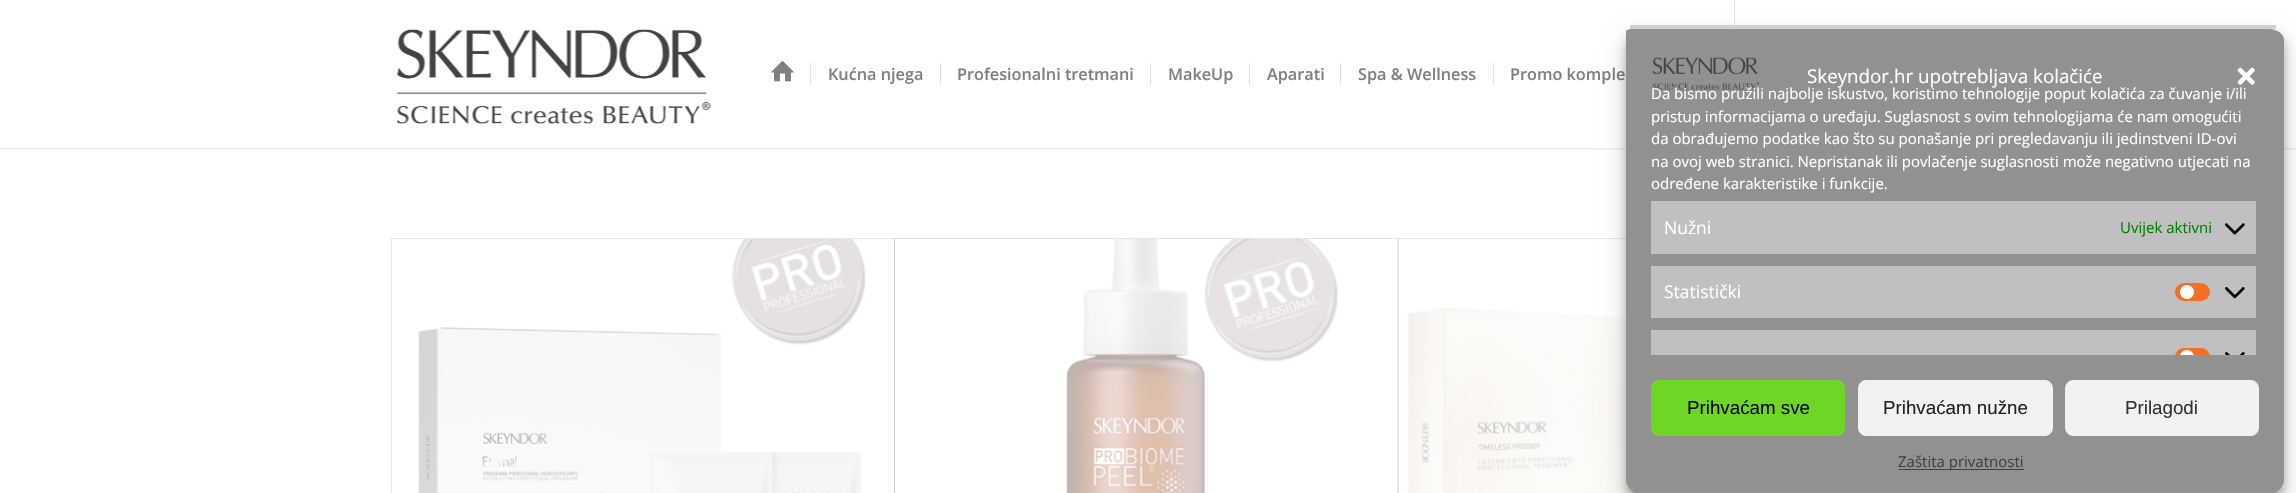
void draw(SkCanvas* canvas) {
	SkPaint paint;
	paint.setAntiAlias(true);
	auto svgPath = [&](const char* data, bool evenOdd = false) {
		SkPath result = *SkParsePath::FromSVGString(data);
		if (evenOdd) result.setFillType(SkPathFillType::kEvenOdd);
		return result;
	};
	canvas->clear(0xffffffff);
	paint.setColor(0x1a000000);
	paint.setMaskFilter(SkMaskFilter::MakeBlur(kNormal_SkBlurStyle, 1));
	canvas->drawRect(SkRect::MakeXYWH(-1, -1, 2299, 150), paint);
	paint.setMaskFilter(nullptr);
	paint.setColor(0xffffffff);
	canvas->drawRect(SkRect::MakeXYWH(0, 0, 2296, 148), paint);
	canvas->drawImageRect(SkImages::DeferredFromEncodedData(SkData::MakeFromFileName("img1.png")), SkRect::MakeXYWH(396, 29, 315, 95), SkSamplingOptions());
	paint.setColor(0xffe1e1e1);
	canvas->drawRect(SkRect::MakeXYWH(1734, 0, 1, 25), paint);
	canvas->drawImageRect(SkImages::DeferredFromEncodedData(SkData::MakeFromFileName("img2.png")), SkRect::MakeXYWH(771, 61, 23, 21), SkSamplingOptions());
	SkFont f1(fontMgr->matchFamilyStyle("Open Sans", SkFontStyle(600, SkFontStyle::kNormal_Width, SkFontStyle::kUpright_Slant)), 16.25);
	f1.setSubpixel(true);
	paint.setColor(0xff808080);
	canvas->drawString("Kućna njega", 828, 80, f1, paint);
	paint.setColor(0xffe1e1e1);
	canvas->drawRect(SkRect::MakeXYWH(810, 63, 1, 22), paint);
	paint.setColor(0xff808080);
	canvas->drawString("Profesionalni tretmani", 957, 80, f1, paint);
	paint.setColor(0xffe1e1e1);
	canvas->drawRect(SkRect::MakeXYWH(940, 63, 1, 22), paint);
	paint.setColor(0xff808080);
	canvas->drawString("MakeUp", 1168, 80, f1, paint);
	paint.setColor(0xffe1e1e1);
	canvas->drawRect(SkRect::MakeXYWH(1150, 63, 1, 22), paint);
	paint.setColor(0xff808080);
	canvas->drawString("Aparati", 1267, 80, f1, paint);
	paint.setColor(0xffe1e1e1);
	canvas->drawRect(SkRect::MakeXYWH(1249, 63, 1, 22), paint);
	paint.setColor(0xff808080);
	canvas->drawString("Spa & Wellness", 1358, 80, f1, paint);
	paint.setColor(0xffe1e1e1);
	canvas->drawRect(SkRect::MakeXYWH(1340, 63, 1, 22), paint);
	paint.setColor(0xff808080);
	canvas->drawString("Promo komple", 1510, 80, f1, paint);
	paint.setColor(0xffe1e1e1);
	canvas->drawRect(SkRect::MakeXYWH(1493, 63, 1, 22), paint);
	paint.setStroke(true);
	paint.setStrokeWidth(1);
	paint.setColor(0xffe6e6e6);
	canvas->drawRect(SkRect::MakeXYWH(391.5, 238.5, 503, 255), paint);
	canvas->drawImageRect(SkImages::DeferredFromEncodedData(SkData::MakeFromFileName("img3.png")), SkRect::MakeXYWH(418, 239, 448, 254), SkSamplingOptions());
	paint.setColor(0x1a000000);
	canvas->drawRect(SkRect::MakeXYWH(894.5, 238.5, 503, 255), paint);
	canvas->drawImageRect(SkImages::DeferredFromEncodedData(SkData::MakeFromFileName("img4.png")), SkRect::MakeXYWH(1066, 239, 272, 254), SkSamplingOptions());
	paint.setColor(0xffe6e6e6);
	canvas->drawRect(SkRect::MakeXYWH(1398.5, 238.5, 502, 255), paint);
	canvas->drawImageRect(SkImages::DeferredFromEncodedData(SkData::MakeFromFileName("img5.png")), SkRect::MakeXYWH(1408, 306, 228, 187), SkSamplingOptions());
	paint.setStroke(false);
	paint.setColor(0x3b000000);
	paint.setMaskFilter(SkMaskFilter::MakeBlur(kNormal_SkBlurStyle, 4));
	canvas->drawRoundRect(SkRect::MakeXYWH(1626, 33, 658, 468), 15, 15, paint);
	paint.setMaskFilter(nullptr);
	paint.setColor(0x30000000);
	paint.setMaskFilter(SkMaskFilter::MakeBlur(kNormal_SkBlurStyle, 12.5));
	canvas->drawRoundRect(SkRect::MakeXYWH(1626, 38, 658, 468), 15, 15, paint);
	paint.setMaskFilter(nullptr);
	paint.setColor(0xff919191);
	canvas->drawPath(svgPath("M1632 29H2269C2277 29 2284 34 2284 40V479C2284 487 2277 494 2269 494H1641C1633 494 1626 487 1626 479V31C1626 30 1629 29 1632 29Z"), paint);
	paint.setColor(0xffd5cecc);
	canvas->drawRect(SkRect::MakeXYWH(1630, 25, 646, 4), paint);
	canvas->drawImageRect(SkImages::DeferredFromEncodedData(SkData::MakeFromFileName("img6.png")), SkRect::MakeXYWH(1652, 57, 108, 33), SkSamplingOptions());
	SkFont f2(fontMgr->matchFamilyStyle("Open Sans", SkFontStyle::Normal()), 18.75);
	f2.setSubpixel(true);
	paint.setColor(0xffffffff);
	canvas->drawString("Skeyndor.hr upotrebljava kolačiće", 1807, 83, f2, paint);
	canvas->drawImageRect(SkImages::DeferredFromEncodedData(SkData::MakeFromFileName("img7.png")), SkRect::MakeXYWH(2237, 67, 18, 18), SkSamplingOptions());
	SkFont f3(fontMgr->matchFamilyStyle("Open Sans", SkFontStyle::Normal()), 15);
	f3.setSubpixel(true);
	canvas->drawString("Da bismo pružili najbolje iskustvo, koristimo tehnologije poput kolačića za čuvanje i/ili", 1651, 99, f3, paint);
	canvas->drawString("pristup informacijama o uređaju. Suglasnost s ovim tehnologijama će nam omogućiti", 1651, 122, f3, paint);
	canvas->drawString("da obrađujemo podatke kao što su ponašanje pri pregledavanju ili jedinstveni ID-ovi", 1651, 144, f3, paint);
	canvas->drawString("na ovoj web stranici. Nepristanak ili povlačenje suglasnosti može negativno utjecati na", 1651, 167, f3, paint);
	canvas->drawString("određene karakteristike i funkcije.", 1651, 189, f3, paint);
	paint.setColor(0xffc0c0c0);
	canvas->drawRect(SkRect::MakeXYWH(1651, 201, 605, 53), paint);
	SkFont f4(fontMgr->matchFamilyStyle("Open Sans", SkFontStyle::Normal()), 17.5);
	f4.setSubpixel(true);
	paint.setColor(0xffffffff);
	canvas->drawString("Nužni", 1664, 234, f4, paint);
	paint.setColor(0xff008000);
	canvas->drawString("Uvijek aktivni", 2120, 233, f3, paint);
	canvas->drawImageRect(SkImages::DeferredFromEncodedData(SkData::MakeFromFileName("img8.png")), SkRect::MakeXYWH(2225, 223, 20, 12), SkSamplingOptions());
	paint.setColor(0xffc0c0c0);
	canvas->drawRect(SkRect::MakeXYWH(1651, 266, 605, 52), paint);
	paint.setColor(0xffffffff);
	canvas->drawString("Statistički", 1664, 298, f4, paint);
	paint.setColor(0xfff56e28);
	canvas->drawRoundRect(SkRect::MakeXYWH(2175, 283, 35, 18), 9, 9, paint);
	paint.setColor(0xffffffff);
	canvas->drawCircle(2187, 292, 7, paint);
	canvas->drawImageRect(SkImages::DeferredFromEncodedData(SkData::MakeFromFileName("img9.png")), SkRect::MakeXYWH(2225, 287, 20, 12), SkSamplingOptions());
	paint.setColor(0xffc0c0c0);
	canvas->drawRect(SkRect::MakeXYWH(1651, 330, 605, 25), paint);
	paint.setColor(0xfff56e28);
	canvas->drawPath(svgPath("M2184 348H2201C2206 348 2210 352 2210 357V355H2175V357C2175 352 2179 348 2184 348Z"), paint);
	paint.setColor(0xffffffff);
	canvas->drawPath(svgPath("M2187 350C2191 350 2194 353 2194 357V355H2180V357C2180 353 2183 350 2187 350Z"), paint);
	canvas->drawImageRect(SkImages::DeferredFromEncodedData(SkData::MakeFromFileName("img10.png")), SkRect::MakeXYWH(2225, 352, 20, 3), SkSamplingOptions());
	paint.setColor(0xff6ed624);
	canvas->drawRoundRect(SkRect::MakeXYWH(1651.5, 380.5, 193, 55), 7.5, 7.5, paint);
	paint.setStroke(true);
	canvas->drawRoundRect(SkRect::MakeXYWH(1651.5, 380.5, 193, 55), 7.5, 7.5, paint);
	SkFont f5(fontMgr->matchFamilyStyle("Liberation Sans", SkFontStyle::Normal()), 18.75);
	f5.setSubpixel(true);
	paint.setStroke(false);
	paint.setColor(0xff0a0a0a);
	canvas->drawString("Prihvaćam sve", 1687, 414, f5, paint);
	paint.setColor(0xfff2f2f2);
	canvas->drawRoundRect(SkRect::MakeXYWH(1858.5, 380.5, 194, 55), 7.5, 7.5, paint);
	paint.setStroke(true);
	canvas->drawRoundRect(SkRect::MakeXYWH(1858.5, 380.5, 194, 55), 7.5, 7.5, paint);
	paint.setStroke(false);
	paint.setColor(0xff222222);
	canvas->drawString("Prihvaćam nužne", 1883, 414, f5, paint);
	paint.setColor(0xfff2f2f2);
	canvas->drawRoundRect(SkRect::MakeXYWH(2065.5, 380.5, 193, 55), 7.5, 7.5, paint);
	paint.setStroke(true);
	canvas->drawRoundRect(SkRect::MakeXYWH(2065.5, 380.5, 193, 55), 7.5, 7.5, paint);
	paint.setStroke(false);
	paint.setColor(0xff333333);
	canvas->drawString("Prilagodi", 2125, 414, f5, paint);
	paint.setColor(0xff434243);
	canvas->drawRect(SkRect::MakeXYWH(1899, 469, 125, 1), paint);
	canvas->drawString("Zaštita privatnosti", 1898, 467, f3, paint);
}
